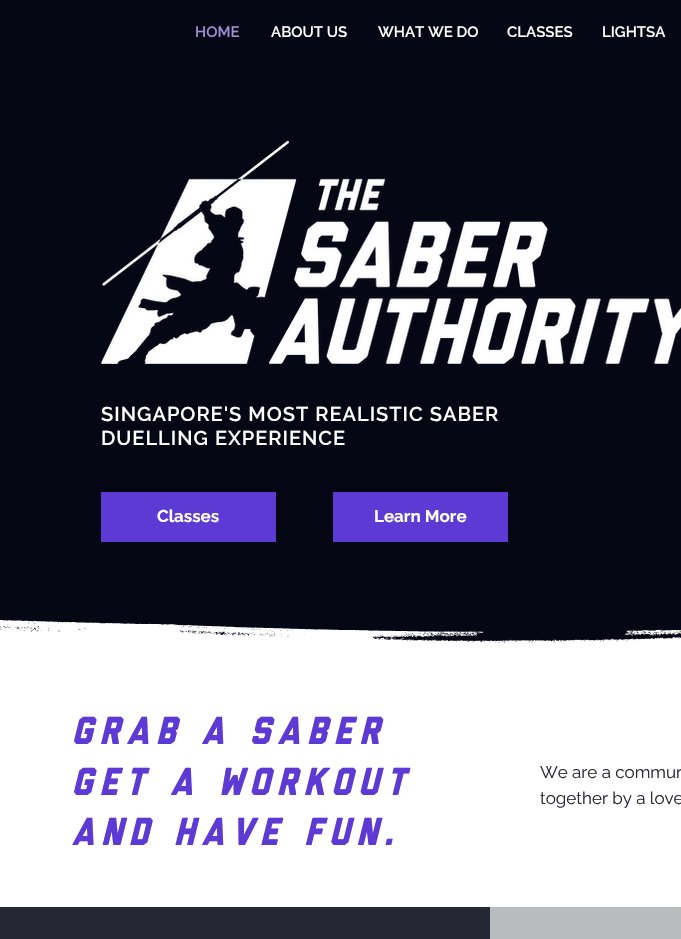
void draw(SkCanvas* canvas) {
	SkPaint paint;
	paint.setAntiAlias(true);
	auto spacedText = [&](const char* s, float x, float y, const SkFont& font, const SkPaint& ink, float letter, float word) {
		std::vector<SkGlyphID> glyphs(font.countText(s, strlen(s), SkTextEncoding::kUTF8));
		std::vector<float> xs(glyphs.size());
		font.textToGlyphs(s, strlen(s), SkTextEncoding::kUTF8, glyphs);
		font.getXPos(glyphs, xs, x);
		float extra = 0;
		for (size_t i = 0; i < glyphs.size(); i++) {
			xs[i] += extra;
			extra += letter + word * (glyphs[i] == font.unicharToGlyph(' '));
		}
		canvas->drawTextBlob(SkTextBlob::MakeFromPosHGlyphs(glyphs, xs, y, font), 0, 0, ink);
	};
	canvas->clear(0xff050715);
	SkFont f1(fontMgr->matchFamilyStyle("Raleway", SkFontStyle(600, SkFontStyle::kNormal_Width, SkFontStyle::kUpright_Slant)), 15);
	f1.setSubpixel(true);
	paint.setColor(0xffa090d6);
	canvas->drawString("HOME", 195, 37, f1, paint);
	paint.setColor(0xffffffff);
	canvas->drawString("ABOUT US", 271, 37, f1, paint);
	canvas->drawString("WHAT WE DO", 378, 37, f1, paint);
	canvas->drawString("CLASSES", 507, 37, f1, paint);
	canvas->drawString("LIGHTSA", 602, 37, f1, paint);
	canvas->drawImageRect(SkImages::DeferredFromEncodedData(SkData::MakeFromFileName("img1.png")), SkRect::MakeXYWH(101, 141, 580, 223), SkSamplingOptions());
	SkFont f2(fontMgr->matchFamilyStyle("Raleway", SkFontStyle(600, SkFontStyle::kNormal_Width, SkFontStyle::kUpright_Slant)), 20);
	f2.setSubpixel(true);
	spacedText("SINGAPORE'S MOST REALISTIC SABER", 101, 421, f2, paint, 1, 0);
	spacedText("DUELLING EXPERIENCE", 101, 445, f2, paint, 1, 0);
	paint.setColor(0xff5e3ad4);
	canvas->drawRect(SkRect::MakeXYWH(101, 492, 175, 50), paint);
	SkFont f3(fontMgr->matchFamilyStyle("Raleway", SkFontStyle::Bold()), 17);
	f3.setSubpixel(true);
	paint.setColor(0xffffffff);
	canvas->drawString("Classes", 157, 522, f3, paint);
	paint.setColor(0xff5e3ad4);
	canvas->drawRect(SkRect::MakeXYWH(333, 492, 175, 50), paint);
	paint.setColor(0xffffffff);
	canvas->drawString("Learn More", 374, 522, f3, paint);
	canvas->drawImageRect(SkImages::DeferredFromEncodedData(SkData::MakeFromFileName("img2.png")), SkRect::MakeXYWH(0, 620, 681, 45), SkSamplingOptions());
	canvas->drawRect(SkRect::MakeXYWH(0, 665, 681, 242), paint);
	SkFont f4(fontMgr->matchFamilyStyle("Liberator", SkFontStyle::BoldItalic()), 39);
	f4.setSubpixel(true);
	paint.setColor(0xff5e3ad4);
	spacedText("GRAB A SABER", 71, 744, f4, paint, 5.8, 0);
	spacedText("GET A WORKOUT", 71, 795, f4, paint, 5.8, 0);
	spacedText("AND HAVE FUN.", 71, 845, f4, paint, 5.8, 0);
	SkFont f5(fontMgr->matchFamilyStyle("Raleway", SkFontStyle::Normal()), 17);
	f5.setSubpixel(true);
	paint.setColor(0xff27242e);
	canvas->drawString("We are a commun", 540, 778, f5, paint);
	canvas->drawString("together by a love", 540, 804, f5, paint);
	paint.setColor(0xff252733);
	canvas->drawRect(SkRect::MakeXYWH(0, 907, 490, 32), paint);
	paint.setColor(0xffb9bbbd);
	canvas->drawRect(SkRect::MakeXYWH(490, 907, 191, 32), paint);
}
